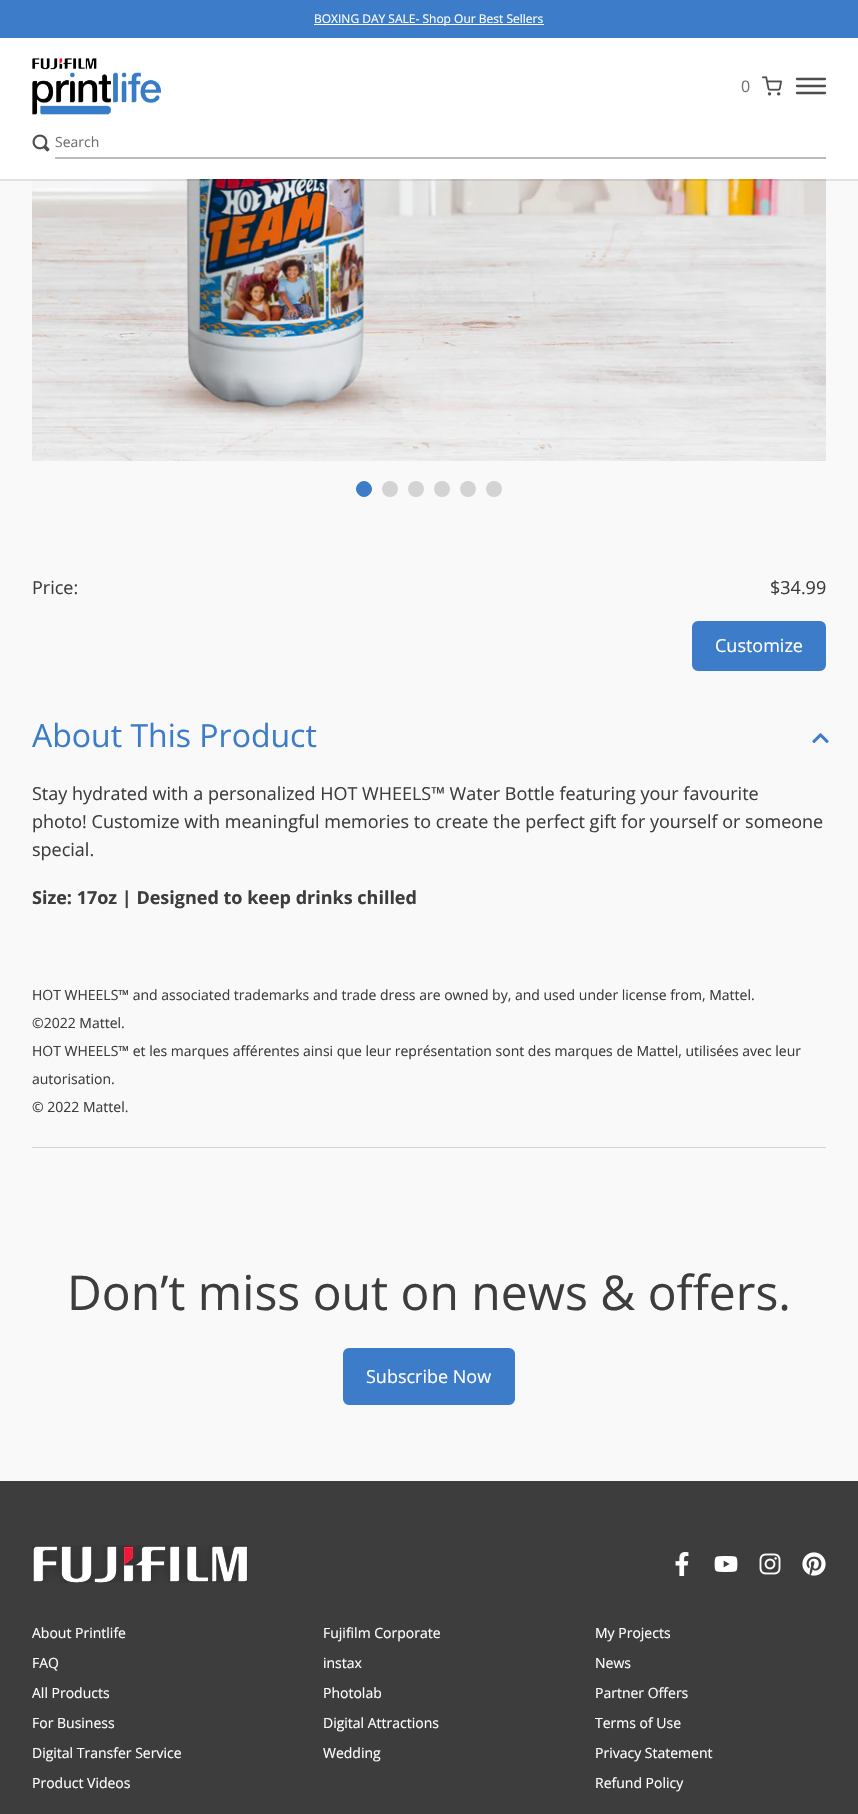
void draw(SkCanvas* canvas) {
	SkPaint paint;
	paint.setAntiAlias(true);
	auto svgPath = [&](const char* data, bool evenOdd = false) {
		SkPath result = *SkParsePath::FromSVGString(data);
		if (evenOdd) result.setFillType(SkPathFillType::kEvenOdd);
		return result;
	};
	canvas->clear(0xfff9f9f9);
	paint.setColor(0xff3d7cc9);
	canvas->drawRect(SkRect::MakeXYWH(0, 0, 858, 38), paint);
	paint.setColor(0xffffffff);
	canvas->drawRect(SkRect::MakeXYWH(314, 24, 230, 1), paint);
	SkFont f1(fontMgr->matchFamilyStyle("Open Sans", SkFontStyle::Normal()), 12);
	f1.setSubpixel(true);
	canvas->drawString("BOXING DAY SALE- Shop Our Best Sellers", 314, 23, f1, paint);
	canvas->drawImageRect(SkImages::DeferredFromEncodedData(SkData::MakeFromFileName("img4.png")), SkRect::MakeXYWH(32, 179, 794, 282), SkSamplingOptions());
	paint.setColor(0x1a222222);
	canvas->drawRect(SkRect::MakeXYWH(0, 179, 858, 2), paint);
	paint.setColor(0xffffffff);
	canvas->drawRect(SkRect::MakeXYWH(0, 38, 858, 141), paint);
	canvas->drawImageRect(SkImages::DeferredFromEncodedData(SkData::MakeFromFileName("img1.png")), SkRect::MakeXYWH(32, 58, 130, 57), SkSamplingOptions());
	SkFont f2(fontMgr->matchFamilyStyle("Open Sans", SkFontStyle::Normal()), 16);
	f2.setSubpixel(true);
	paint.setColor(0xff707070);
	canvas->drawString("0", 741, 92, f2, paint);
	canvas->drawImageRect(SkImages::DeferredFromEncodedData(SkData::MakeFromFileName("img2.png")), SkRect::MakeXYWH(762, 76, 20, 20), SkSamplingOptions());
	paint.setStroke(true);
	paint.setStrokeWidth(2.3);
	paint.setStrokeCap(SkPaint::kRound_Cap);
	paint.setStrokeJoin(SkPaint::kRound_Join);
	paint.setColor(0xff4d4d4d);
	canvas->drawPath(svgPath("M797 86H825M797 79H825M797 93H825"), paint);
	canvas->drawImageRect(SkImages::DeferredFromEncodedData(SkData::MakeFromFileName("img3.png")), SkRect::MakeXYWH(32, 134, 18, 18), SkSamplingOptions());
	paint.setStroke(false);
	paint.setColor(0xffbbbbbb);
	canvas->drawRect(SkRect::MakeXYWH(55, 157, 771, 2), paint);
	SkFont f3(fontMgr->matchFamilyStyle("Open Sans", SkFontStyle::Normal()), 14);
	f3.setSubpixel(true);
	paint.setColor(0xff707070);
	canvas->drawString("Search", 55, 147, f3, paint);
	paint.setColor(0xff3d7cc9);
	canvas->drawCircle(364, 489, 7.5, paint);
	paint.setStroke(true);
	paint.setStrokeWidth(1);
	paint.setStrokeCap(SkPaint::kButt_Cap);
	paint.setStrokeJoin(SkPaint::kMiter_Join);
	canvas->drawCircle(364, 489, 7.5, paint);
	paint.setStroke(false);
	paint.setColor(0xffd3d3d3);
	canvas->drawCircle(390, 489, 8, paint);
	canvas->drawCircle(416, 489, 8, paint);
	canvas->drawCircle(442, 489, 8, paint);
	canvas->drawCircle(468, 489, 8, paint);
	canvas->drawCircle(494, 489, 8, paint);
	SkFont f4(fontMgr->matchFamilyStyle("Open Sans", SkFontStyle::Normal()), 18);
	f4.setSubpixel(true);
	paint.setColor(0xff3d3d3d);
	canvas->drawString("Price:", 32, 594, f4, paint);
	canvas->drawString("$34.99", 770, 594, f4, paint);
	paint.setColor(0xff3d7cc9);
	canvas->drawRoundRect(SkRect::MakeXYWH(693.5, 622.5, 131, 47), 4.5, 4.5, paint);
	paint.setStroke(true);
	paint.setStrokeWidth(3);
	canvas->drawRoundRect(SkRect::MakeXYWH(693.5, 622.5, 131, 47), 4.5, 4.5, paint);
	paint.setStroke(false);
	paint.setColor(0xffffffff);
	canvas->drawString("Customize", 715, 652, f4, paint);
	paint.setColor(0xffd1d5db);
	canvas->drawRect(SkRect::MakeXYWH(32, 1147, 794, 1), paint);
	SkFont f5(fontMgr->matchFamilyStyle("Open Sans", SkFontStyle::Normal()), 32);
	f5.setSubpixel(true);
	paint.setColor(0xff3d7cc9);
	canvas->drawString("About This Product", 32, 747, f5, paint);
	canvas->drawImageRect(SkImages::DeferredFromEncodedData(SkData::MakeFromFileName("img5.png")), SkRect::MakeXYWH(812, 733, 17, 10), SkSamplingOptions());
	paint.setColor(0xff3d3d3d);
	canvas->drawString("Stay hydrated with a personalized HOT WHEELS™ Water Bottle featuring your favourite", 32, 800, f4, paint);
	canvas->drawString("photo! Customize with meaningful memories to create the perfect gift for yourself or someone", 32, 828, f4, paint);
	canvas->drawString("special.", 32, 856, f4, paint);
	SkFont f6(fontMgr->matchFamilyStyle("Open Sans", SkFontStyle::Bold()), 18);
	f6.setSubpixel(true);
	canvas->drawString("Size: 17oz | Designed to keep drinks chilled", 32, 904, f6, paint);
	canvas->drawString("HOT WHEELS™ and associated trademarks and trade dress are owned by, and used under license from, Mattel.", 32, 1000, f3, paint);
	canvas->drawString("©2022 Mattel.", 32, 1028, f3, paint);
	canvas->drawString("HOT WHEELS™ et les marques afférentes ainsi que leur représentation sont des marques de Mattel, utilisées avec leur", 32, 1056, f3, paint);
	canvas->drawString("autorisation.", 32, 1084, f3, paint);
	canvas->drawString("© 2022 Mattel.", 32, 1112, f3, paint);
	SkFont f7(fontMgr->matchFamilyStyle("Open Sans", SkFontStyle::Normal()), 48);
	f7.setSubpixel(true);
	canvas->drawString("Don’t miss out on news & offers.", 67, 1310, f7, paint);
	paint.setColor(0xff3d7cc9);
	canvas->drawRoundRect(SkRect::MakeXYWH(344.5, 1349.5, 169, 54), 4.5, 4.5, paint);
	paint.setStroke(true);
	canvas->drawRoundRect(SkRect::MakeXYWH(344.5, 1349.5, 169, 54), 4.5, 4.5, paint);
	paint.setStroke(false);
	paint.setColor(0xffffffff);
	canvas->drawString("Subscribe Now", 366, 1383, f4, paint);
	paint.setColor(0xff3d3d3d);
	canvas->drawRect(SkRect::MakeXYWH(0, 1481, 858, 333), paint);
	canvas->drawImageRect(SkImages::DeferredFromEncodedData(SkData::MakeFromFileName("img6.png")), SkRect::MakeXYWH(32, 1545, 216, 38), SkSamplingOptions());
	canvas->drawImageRect(SkImages::DeferredFromEncodedData(SkData::MakeFromFileName("img7.png")), SkRect::MakeXYWH(675, 1552, 14, 24), SkSamplingOptions());
	canvas->drawImageRect(SkImages::DeferredFromEncodedData(SkData::MakeFromFileName("img8.png")), SkRect::MakeXYWH(714, 1556, 24, 16), SkSamplingOptions());
	canvas->drawImageRect(SkImages::DeferredFromEncodedData(SkData::MakeFromFileName("img9.png")), SkRect::MakeXYWH(759, 1553, 22, 22), SkSamplingOptions());
	canvas->drawImageRect(SkImages::DeferredFromEncodedData(SkData::MakeFromFileName("img10.png")), SkRect::MakeXYWH(802, 1552, 24, 24), SkSamplingOptions());
	paint.setColor(0xffffffff);
	canvas->drawString("About Printlife", 32, 1638, f3, paint);
	canvas->drawString("FAQ", 32, 1668, f3, paint);
	canvas->drawString("All Products", 32, 1698, f3, paint);
	canvas->drawString("For Business", 32, 1728, f3, paint);
	canvas->drawString("Digital Transfer Service", 32, 1758, f3, paint);
	canvas->drawString("Product Videos", 32, 1788, f3, paint);
	canvas->drawString("Fujifilm Corporate", 323, 1638, f3, paint);
	canvas->drawString("instax", 323, 1668, f3, paint);
	canvas->drawString("Photolab", 323, 1698, f3, paint);
	canvas->drawString("Digital Attractions", 323, 1728, f3, paint);
	canvas->drawString("Wedding", 323, 1758, f3, paint);
	canvas->drawString("My Projects", 595, 1638, f3, paint);
	canvas->drawString("News", 595, 1668, f3, paint);
	canvas->drawString("Partner Offers", 595, 1698, f3, paint);
	canvas->drawString("Terms of Use", 595, 1728, f3, paint);
	canvas->drawString("Privacy Statement", 595, 1758, f3, paint);
	canvas->drawString("Refund Policy", 595, 1788, f3, paint);
}
